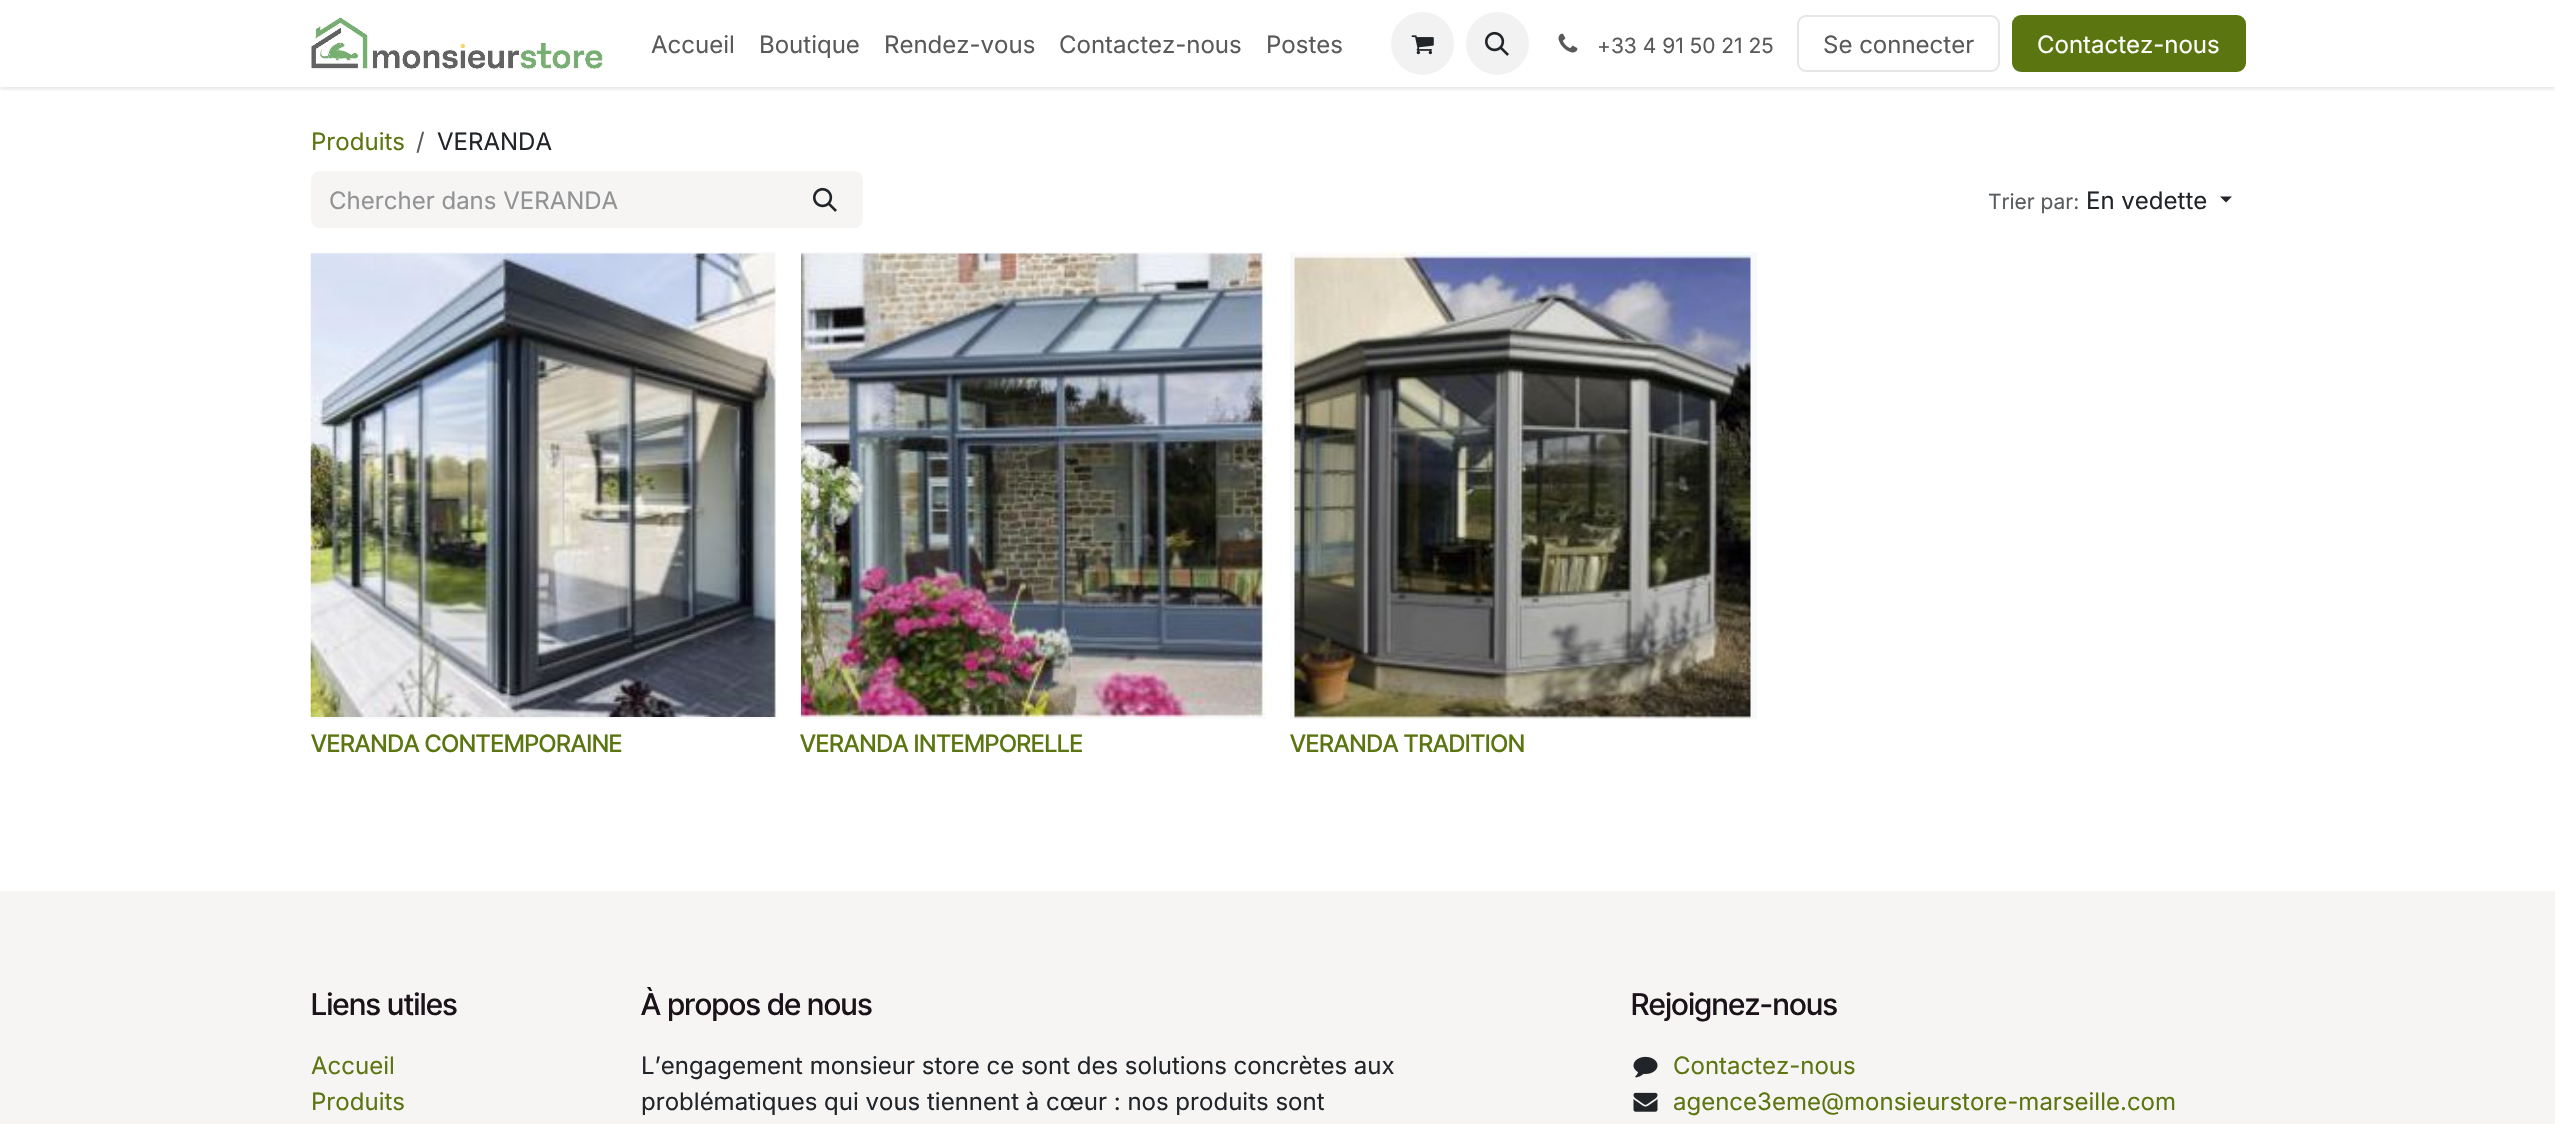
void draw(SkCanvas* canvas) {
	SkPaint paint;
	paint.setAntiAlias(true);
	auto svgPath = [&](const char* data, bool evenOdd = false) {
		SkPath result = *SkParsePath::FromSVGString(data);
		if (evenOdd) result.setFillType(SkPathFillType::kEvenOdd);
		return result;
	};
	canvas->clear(0xffffffff);
	canvas->save();
	canvas->clipRect(SkRect::MakeXYWH(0, 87, 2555, 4));
	paint.setColor(0x1a000000);
	paint.setMaskFilter(SkMaskFilter::MakeBlur(kNormal_SkBlurStyle, 2));
	canvas->drawRect(SkRect::MakeXYWH(0, 2, 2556, 87), paint);
	paint.setMaskFilter(nullptr);
	canvas->restore();
	canvas->drawImageRect(SkImages::DeferredFromEncodedData(SkData::MakeFromFileName("img1.png")), SkRect::MakeXYWH(311, 17, 292, 55), SkSamplingOptions());
	SkFont f1(fontMgr->matchFamilyStyle("Inter", SkFontStyle::Normal()), 24);
	f1.setSubpixel(true);
	paint.setColor(0xff595959);
	canvas->drawString("Accueil", 651, 53, f1, paint);
	canvas->drawString("Boutique", 759, 53, f1, paint);
	canvas->drawString("Rendez-vous", 884, 53, f1, paint);
	canvas->drawString("Contactez-nous", 1059, 53, f1, paint);
	canvas->drawString("Postes", 1266, 53, f1, paint);
	paint.setColor(0xfff2f2f2);
	canvas->drawCircle(1422.5, 43.5, 31.5, paint);
	canvas->drawImageRect(SkImages::DeferredFromEncodedData(SkData::MakeFromFileName("img2.png")), SkRect::MakeXYWH(1411, 35, 23, 20), SkSamplingOptions());
	canvas->drawCircle(1497.5, 43.5, 31.5, paint);
	canvas->drawImageRect(SkImages::DeferredFromEncodedData(SkData::MakeFromFileName("img3.png")), SkRect::MakeXYWH(1485, 31, 24, 25), SkSamplingOptions());
	canvas->drawImageRect(SkImages::DeferredFromEncodedData(SkData::MakeFromFileName("img4.png")), SkRect::MakeXYWH(1558, 33, 20, 20), SkSamplingOptions());
	SkFont f2(fontMgr->matchFamilyStyle("Inter", SkFontStyle::Normal()), 21);
	f2.setSubpixel(true);
	paint.setColor(0xff595959);
	canvas->drawString("+33 4 91 50 21 25", 1597, 53, f2, paint);
	paint.setStroke(true);
	paint.setStrokeWidth(2);
	paint.setColor(0xffe6e6e6);
	canvas->drawRoundRect(SkRect::MakeXYWH(1798, 16, 201, 55), 8, 8, paint);
	paint.setStroke(false);
	paint.setColor(0xff595959);
	canvas->drawString("Se connecter", 1823, 53, f1, paint);
	paint.setColor(0xff5b7610);
	canvas->drawRoundRect(SkRect::MakeXYWH(2013, 16, 232, 55), 8, 8, paint);
	paint.setStroke(true);
	canvas->drawRoundRect(SkRect::MakeXYWH(2013, 16, 232, 55), 8, 8, paint);
	paint.setStroke(false);
	paint.setColor(0xffffffff);
	canvas->drawString("Contactez-nous", 2037, 53, f1, paint);
	paint.setColor(0xff5b7610);
	canvas->drawString("Produits", 311, 150, f1, paint);
	paint.setColor(0xff595c5f);
	canvas->drawString("/", 416, 150, f1, paint);
	paint.setColor(0xff212529);
	canvas->drawString("VERANDA", 437, 150, f1, paint);
	paint.setColor(0xfff6f5f4);
	canvas->drawPath(svgPath("M320 171H789V228H320C315 228 311 224 311 219V180C311 175 315 171 320 171Z"), paint);
	paint.setColor(0xff909294);
	canvas->drawString("Chercher dans VERANDA", 329, 209, f1, paint);
	paint.setColor(0xfff6f5f4);
	canvas->drawPath(svgPath("M789 172H854C858.5 172 862 175.5 862 180V219C862 223.5 858.5 227 854 227H789Z"), paint);
	paint.setStroke(true);
	canvas->drawPath(svgPath("M789 172H854C858.5 172 862 175.5 862 180V219C862 223.5 858.5 227 854 227H789Z"), paint);
	canvas->drawImageRect(SkImages::DeferredFromEncodedData(SkData::MakeFromFileName("img5.png")), SkRect::MakeXYWH(813, 187, 24, 25), SkSamplingOptions());
	paint.setStroke(false);
	paint.setColor(0xff595c5f);
	canvas->drawString("Trier par:", 1988, 209, f2, paint);
	paint.setColor(0xff212529);
	canvas->drawString("En vedette", 2086, 209, f1, paint);
	canvas->drawPath(svgPath("M2220 196.5H2232L2226 202.5Z"), paint);
	paint.setColor(0xfff8f9fa);
	canvas->drawRect(SkRect::MakeXYWH(311, 252, 466, 467), paint);
	canvas->drawImageRect(SkImages::DeferredFromEncodedData(SkData::MakeFromFileName("img6.png")), SkRect::MakeXYWH(310, 253, 467, 464), SkSamplingOptions());
	SkFont f3(fontMgr->matchFamilyStyle("Inter Tight", SkFontStyle(500, SkFontStyle::kNormal_Width, SkFontStyle::kUpright_Slant)), 24);
	f3.setSubpixel(true);
	paint.setColor(0xff5b7610);
	canvas->drawString("VERANDA CONTEMPORAINE", 311, 752, f3, paint);
	paint.setColor(0xfff8f9fa);
	canvas->drawRect(SkRect::MakeXYWH(801, 252, 465, 467), paint);
	canvas->drawImageRect(SkImages::DeferredFromEncodedData(SkData::MakeFromFileName("img7.png")), SkRect::MakeXYWH(801, 253, 465, 464), SkSamplingOptions());
	paint.setColor(0xff5b7610);
	canvas->drawString("VERANDA INTEMPORELLE", 800, 752, f3, paint);
	paint.setColor(0xfff8f9fa);
	canvas->drawRect(SkRect::MakeXYWH(1290, 252, 467, 467), paint);
	canvas->drawImageRect(SkImages::DeferredFromEncodedData(SkData::MakeFromFileName("img8.png")), SkRect::MakeXYWH(1294, 252, 457, 467), SkSamplingOptions());
	paint.setColor(0xff5b7610);
	canvas->drawString("VERANDA TRADITION", 1290, 752, f3, paint);
	paint.setColor(0xfff6f5f4);
	canvas->drawRect(SkRect::MakeXYWH(0, 891, 2555, 233), paint);
	SkFont f4(fontMgr->matchFamilyStyle("Inter Tight", SkFontStyle(500, SkFontStyle::kNormal_Width, SkFontStyle::kUpright_Slant)), 30);
	f4.setSubpixel(true);
	paint.setColor(0xff1b1319);
	canvas->drawString("Liens utiles", 311, 1015, f4, paint);
	paint.setColor(0xff5b7610);
	canvas->drawString("Accueil", 311, 1074, f1, paint);
	canvas->drawString("Produits", 311, 1110, f1, paint);
	paint.setColor(0xff1b1319);
	canvas->drawString("À propos de nous", 641, 1015, f4, paint);
	paint.setColor(0xff212529);
	canvas->drawString("L’engagement monsieur store ce sont des solutions concrètes aux", 641, 1074, f1, paint);
	canvas->drawString("problématiques qui vous tiennent à cœur : nos produits sont", 641, 1110, f1, paint);
	paint.setColor(0xff1b1319);
	canvas->drawString("Rejoignez-nous", 1631, 1015, f4, paint);
	canvas->drawImageRect(SkImages::DeferredFromEncodedData(SkData::MakeFromFileName("img9.png")), SkRect::MakeXYWH(1633, 1056, 25, 22), SkSamplingOptions());
	paint.setColor(0xff5b7610);
	canvas->drawString("Contactez-nous", 1673, 1074, f1, paint);
	canvas->drawImageRect(SkImages::DeferredFromEncodedData(SkData::MakeFromFileName("img10.png")), SkRect::MakeXYWH(1633, 1092, 25, 20), SkSamplingOptions());
	canvas->drawString("agence3eme@monsieurstore-marseille.com", 1673, 1110, f1, paint);
}
